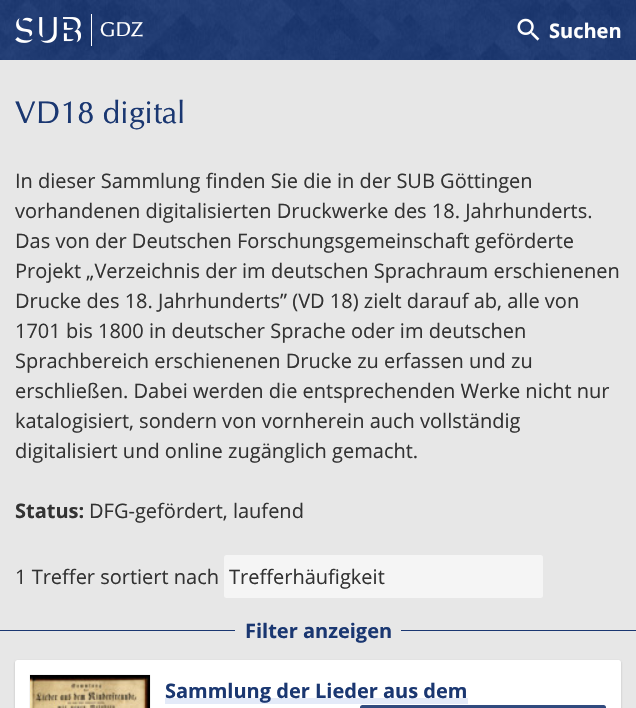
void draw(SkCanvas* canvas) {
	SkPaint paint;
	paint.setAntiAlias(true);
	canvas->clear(0xffe7e7e7);
	canvas->drawImageRect(SkImages::DeferredFromEncodedData(SkData::MakeFromFileName("img1.png")), SkRect::MakeXYWH(0, 0, 636, 60), SkSamplingOptions());
	canvas->drawImageRect(SkImages::DeferredFromEncodedData(SkData::MakeFromFileName("img2.png")), SkRect::MakeXYWH(15, 17, 66, 26), SkSamplingOptions());
	SkFont f1(fontMgr->matchFamilyStyle("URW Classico", SkFontStyle::Normal()), 20);
	f1.setSubpixel(true);
	paint.setColor(0xffffffff);
	canvas->drawString("GDZ", 100, 36, f1, paint);
	canvas->drawRect(SkRect::MakeXYWH(91, 14, 1, 32), paint);
	canvas->drawImageRect(SkImages::DeferredFromEncodedData(SkData::MakeFromFileName("img3.png")), SkRect::MakeXYWH(517, 18, 23, 23), SkSamplingOptions());
	SkFont f2(fontMgr->matchFamilyStyle("Open Sans", SkFontStyle::Bold()), 20);
	f2.setSubpixel(true);
	canvas->drawString("Suchen", 549, 38, f2, paint);
	SkFont f3(fontMgr->matchFamilyStyle("URW Classico", SkFontStyle::Normal()), 31.25);
	f3.setSubpixel(true);
	paint.setColor(0xff1a3771);
	canvas->drawString("VD18 digital", 15, 123, f3, paint);
	SkFont f4(fontMgr->matchFamilyStyle("Open Sans", SkFontStyle::Normal()), 20);
	f4.setSubpixel(true);
	paint.setColor(0xff333333);
	canvas->drawString("In dieser Sammlung finden Sie die in der SUB Göttingen", 15, 188, f4, paint);
	canvas->drawString("vorhandenen digitalisierten Druckwerke des 18. Jahrhunderts.", 15, 218, f4, paint);
	canvas->drawString("Das von der Deutschen Forschungsgemeinschaft geförderte", 15, 248, f4, paint);
	canvas->drawString("Projekt „Verzeichnis der im deutschen Sprachraum erschienenen", 15, 278, f4, paint);
	canvas->drawString("Drucke des 18. Jahrhunderts” (VD 18) zielt darauf ab, alle von", 15, 308, f4, paint);
	canvas->drawString("1701 bis 1800 in deutscher Sprache oder im deutschen", 15, 338, f4, paint);
	canvas->drawString("Sprachbereich erschienenen Drucke zu erfassen und zu", 15, 368, f4, paint);
	canvas->drawString("erschließen. Dabei werden die entsprechenden Werke nicht nur", 15, 398, f4, paint);
	canvas->drawString("katalogisiert, sondern von vornherein auch vollständig", 15, 428, f4, paint);
	canvas->drawString("digitalisiert und online zugänglich gemacht.", 15, 458, f4, paint);
	canvas->drawString("Status:", 15, 518, f2, paint);
	canvas->drawString("DFG-gefördert, laufend", 89, 518, f4, paint);
	canvas->drawString("1 Treffer sortiert nach", 15, 584, f4, paint);
	paint.setColor(0xfff5f5f5);
	canvas->drawRoundRect(SkRect::MakeXYWH(224, 555, 319, 43), 2.5, 2.5, paint);
	paint.setColor(0xff333333);
	canvas->drawString("Trefferhäufigkeit", 229, 584, f4, paint);
	paint.setColor(0xff1a3771);
	canvas->drawRect(SkRect::MakeXYWH(0, 630, 636, 1), paint);
	paint.setColor(0xffe7e7e7);
	canvas->drawRoundRect(SkRect::MakeXYWH(235, 615, 166, 30), 2.5, 2.5, paint);
	paint.setColor(0xff1a3771);
	canvas->drawString("Filter anzeigen", 245, 638, f2, paint);
	paint.setColor(0x3d000000);
	paint.setMaskFilter(SkMaskFilter::MakeBlur(kNormal_SkBlurStyle, 1));
	canvas->drawRoundRect(SkRect::MakeXYWH(15, 661, 606, 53), 2.5, 2.5, paint);
	paint.setMaskFilter(nullptr);
	paint.setColor(0xffffffff);
	canvas->drawRoundRect(SkRect::MakeXYWH(15, 660, 606, 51), 2.5, 2.5, paint);
	paint.setColor(0x3d000000);
	paint.setMaskFilter(SkMaskFilter::MakeBlur(kNormal_SkBlurStyle, 0.5));
	canvas->drawRect(SkRect::MakeXYWH(30, 675, 120, 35), paint);
	paint.setMaskFilter(nullptr);
	canvas->drawImageRect(SkImages::DeferredFromEncodedData(SkData::MakeFromFileName("img4.png")), SkRect::MakeXYWH(30, 675, 120, 33), SkSamplingOptions());
	paint.setColor(0xffe3eaf8);
	canvas->drawRect(SkRect::MakeXYWH(165, 698, 303, 6), paint);
	paint.setColor(0xff1a3771);
	canvas->drawString("Sammlung der Lieder aus dem", 165, 698, f2, paint);
	{
		const SkColor colors[] = {0xff314b7f, 0xff173266};
		const float stops[] = {0, 1};
		const SkPoint ends[] = {{483, 705}, {483, 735}};
		paint.setShader(SkGradientShader::MakeLinear(ends, colors, stops, 2, SkTileMode::kClamp));
		paint.setAlpha(255);
	}
	canvas->drawRoundRect(SkRect::MakeXYWH(360, 705, 246, 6), 2.5, 2.5, paint);
}
